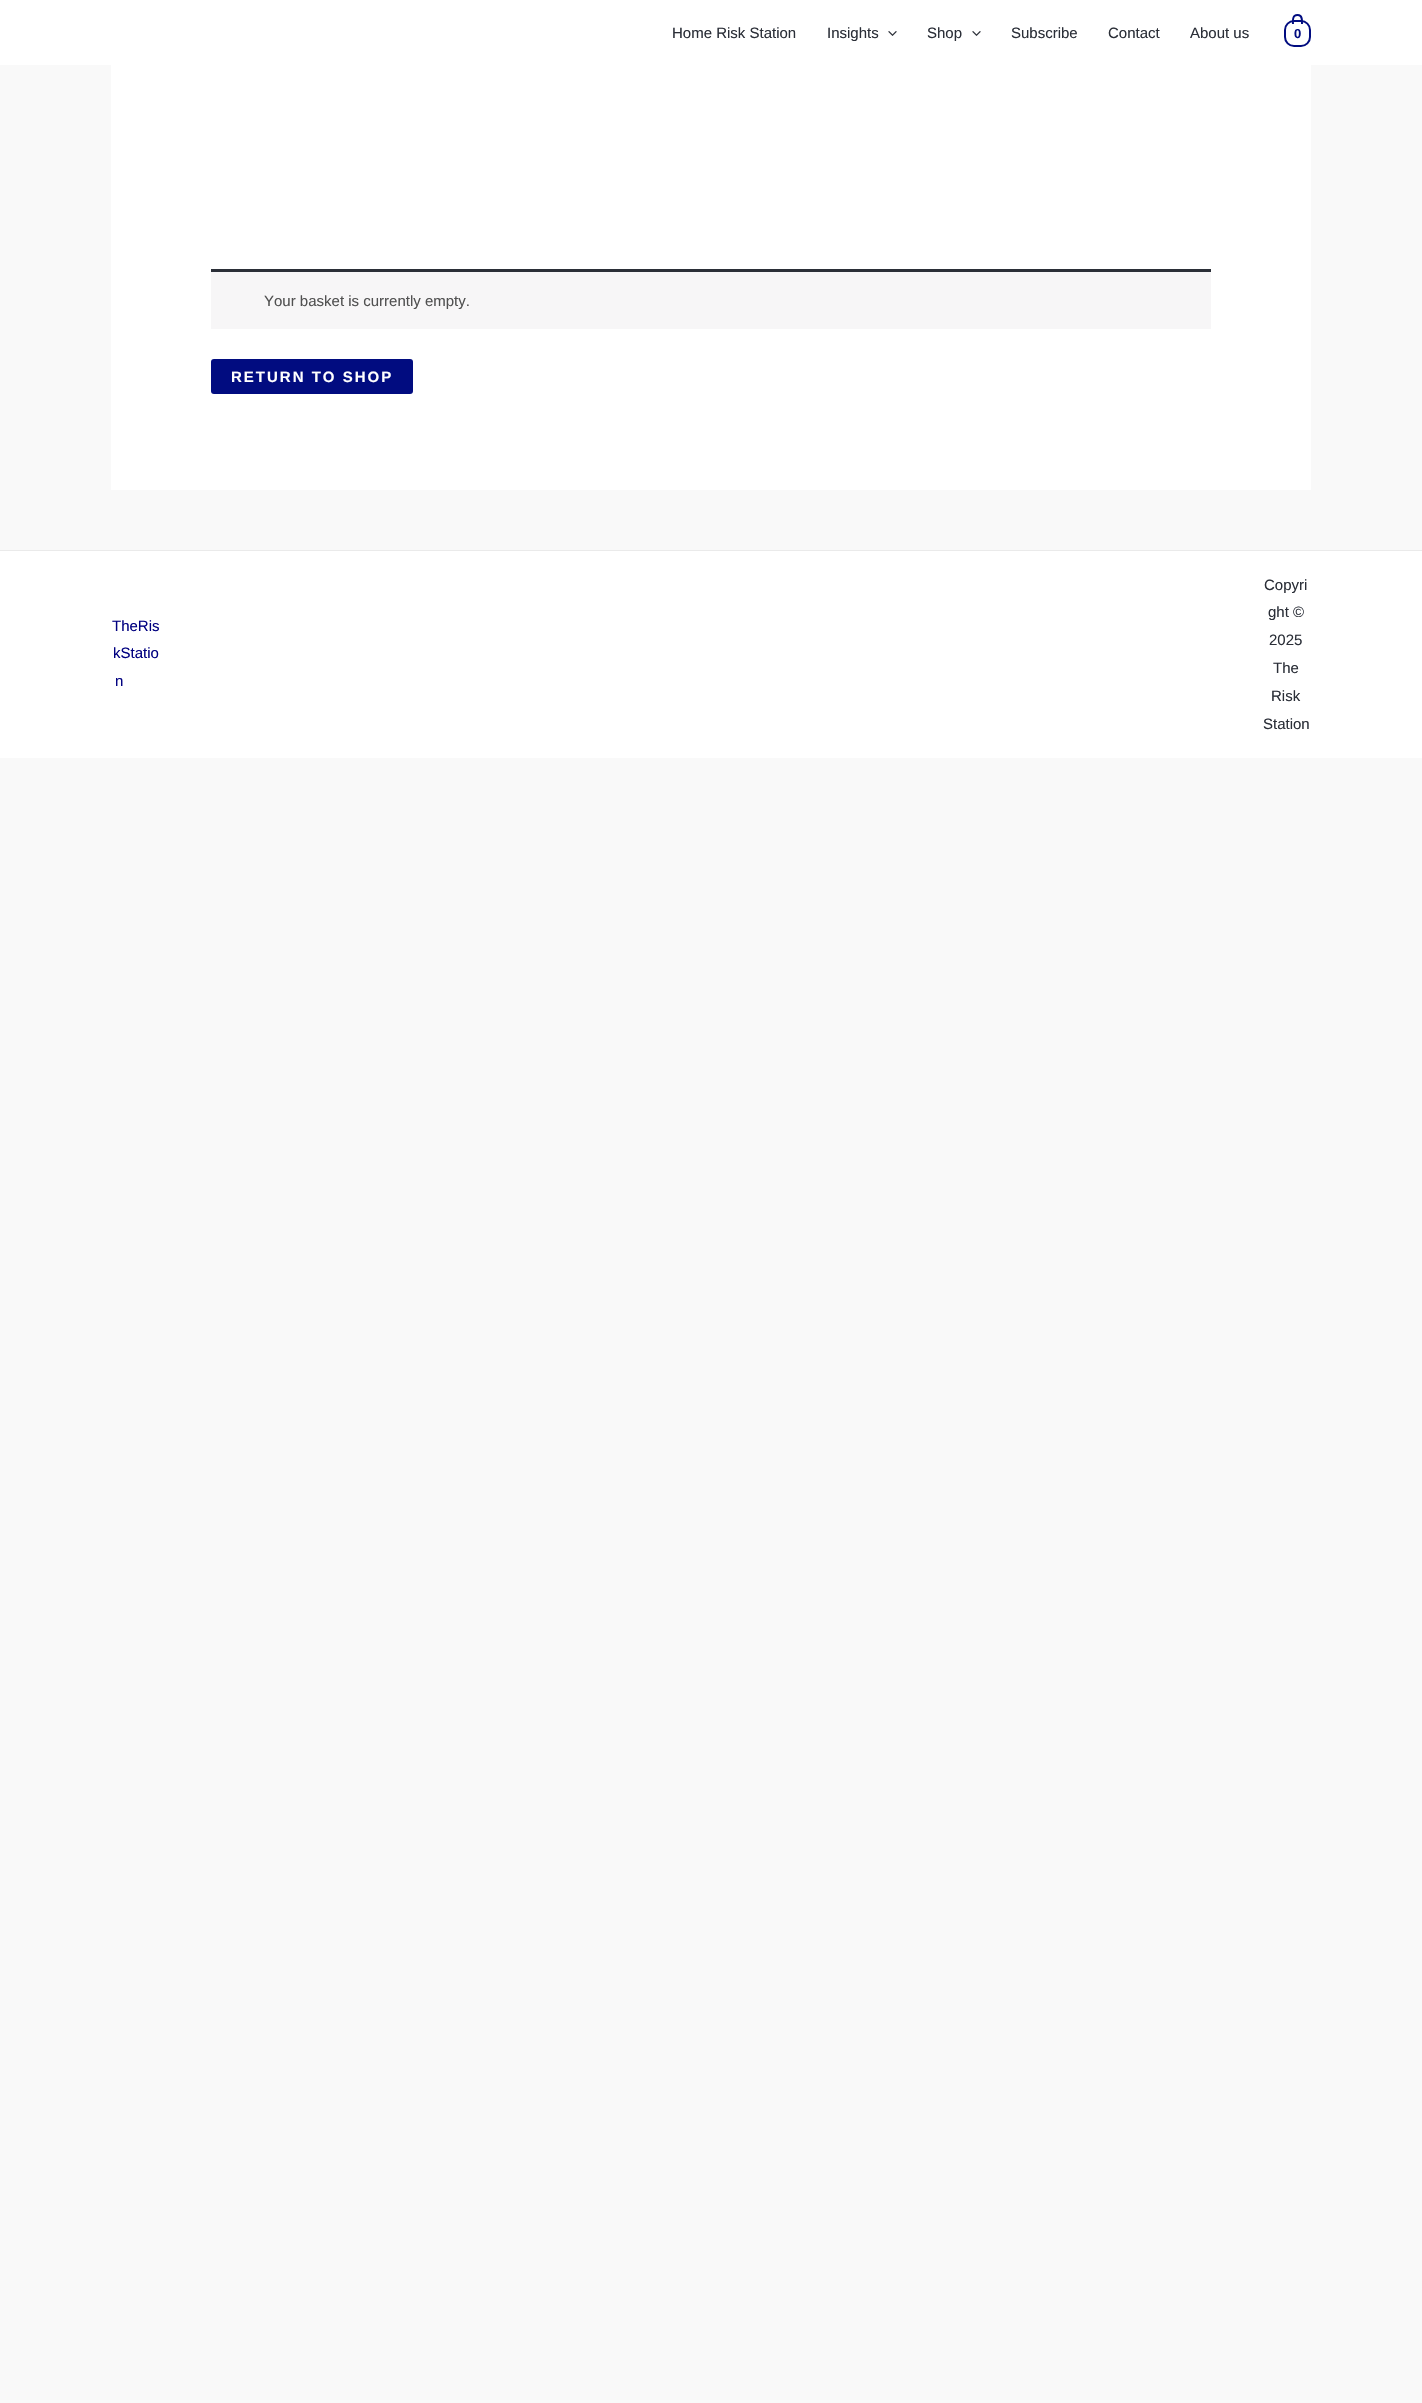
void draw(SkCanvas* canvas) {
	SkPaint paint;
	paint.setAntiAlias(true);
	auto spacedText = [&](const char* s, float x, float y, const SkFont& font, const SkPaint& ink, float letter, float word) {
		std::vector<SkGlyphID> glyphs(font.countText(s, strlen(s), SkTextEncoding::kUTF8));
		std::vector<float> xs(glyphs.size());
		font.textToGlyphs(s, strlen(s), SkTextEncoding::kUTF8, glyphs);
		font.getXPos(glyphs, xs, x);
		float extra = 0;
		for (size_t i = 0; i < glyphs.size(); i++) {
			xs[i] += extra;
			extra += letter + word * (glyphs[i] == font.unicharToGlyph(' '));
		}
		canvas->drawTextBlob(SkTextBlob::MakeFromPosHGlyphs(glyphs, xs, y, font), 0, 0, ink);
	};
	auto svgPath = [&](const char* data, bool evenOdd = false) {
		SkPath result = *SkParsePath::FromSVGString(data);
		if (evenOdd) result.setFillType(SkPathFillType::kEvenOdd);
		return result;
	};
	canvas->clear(0xfff9f9f9);
	paint.setColor(0xffffffff);
	canvas->drawRect(SkRect::MakeXYWH(0, 0, 1422, 65), paint);
	SkFont f1(fontMgr->matchFamilyStyle("Liberation Sans", SkFontStyle::Normal()), 15);
	f1.setSubpixel(true);
	paint.setColor(0xff2b2f38);
	canvas->drawString("Home Risk Station", 672, 38, f1, paint);
	canvas->drawString("Insights", 827, 38, f1, paint);
	canvas->drawImageRect(SkImages::DeferredFromEncodedData(SkData::MakeFromFileName("img1.png")), SkRect::MakeXYWH(888, 31, 9, 5), SkSamplingOptions());
	canvas->drawString("Shop", 927, 38, f1, paint);
	canvas->drawImageRect(SkImages::DeferredFromEncodedData(SkData::MakeFromFileName("img1.png")), SkRect::MakeXYWH(972, 31, 9, 5), SkSamplingOptions());
	canvas->drawString("Subscribe", 1011, 38, f1, paint);
	canvas->drawString("Contact", 1108, 38, f1, paint);
	canvas->drawString("About us", 1190, 38, f1, paint);
	paint.setStroke(true);
	paint.setStrokeWidth(2);
	paint.setColor(0xff010c80);
	canvas->drawRoundRect(SkRect::MakeXYWH(1285, 21, 25, 25), 9, 9, paint);
	paint.setStroke(false);
	canvas->drawPath(svgPath("M1297.5 14C1303.5 14 1303 20 1303 24H1292C1292 20 1291.5 14 1297.5 14ZM1297.5 16C1301.5 16 1301 21 1301 24H1294C1294 21 1293 16 1297.5 16Z", true), paint);
	SkFont f2(fontMgr->matchFamilyStyle("Liberation Sans", SkFontStyle::Bold()), 13);
	f2.setSubpixel(true);
	canvas->drawString("0", 1294, 38, f2, paint);
	paint.setColor(0xffffffff);
	canvas->drawRect(SkRect::MakeXYWH(111, 65, 1200, 425), paint);
	paint.setColor(0xfff7f6f7);
	canvas->drawRect(SkRect::MakeXYWH(211, 272, 1000, 57), paint);
	paint.setColor(0xff2b2f38);
	canvas->drawRect(SkRect::MakeXYWH(211, 269, 1000, 3), paint);
	paint.setColor(0xff515151);
	canvas->drawString("Your basket is currently empty.", 264, 306, f1, paint);
	paint.setColor(0xff010c80);
	canvas->drawRoundRect(SkRect::MakeXYWH(211, 359, 202, 35), 3, 3, paint);
	SkFont f3(fontMgr->matchFamilyStyle("Liberation Sans", SkFontStyle::Bold()), 15);
	f3.setSubpixel(true);
	paint.setColor(0xffffffff);
	spacedText("RETURN TO SHOP", 231, 382, f3, paint, 2, 0);
	canvas->drawRect(SkRect::MakeXYWH(0, 551, 1422, 207), paint);
	paint.setColor(0xffeaeaea);
	canvas->drawRect(SkRect::MakeXYWH(0, 550, 1422, 1), paint);
	paint.setColor(0xff000080);
	canvas->drawString("TheRis", 112, 631, f1, paint);
	canvas->drawString("kStatio", 113, 658, f1, paint);
	canvas->drawString("n", 115, 686, f1, paint);
	paint.setColor(0xff2b2f38);
	canvas->drawString("Copyri", 1264, 590, f1, paint);
	canvas->drawString("ght ©", 1268, 617, f1, paint);
	canvas->drawString("2025", 1269, 645, f1, paint);
	canvas->drawString("The", 1273, 673, f1, paint);
	canvas->drawString("Risk", 1271, 701, f1, paint);
	canvas->drawString("Station", 1263, 729, f1, paint);
}
